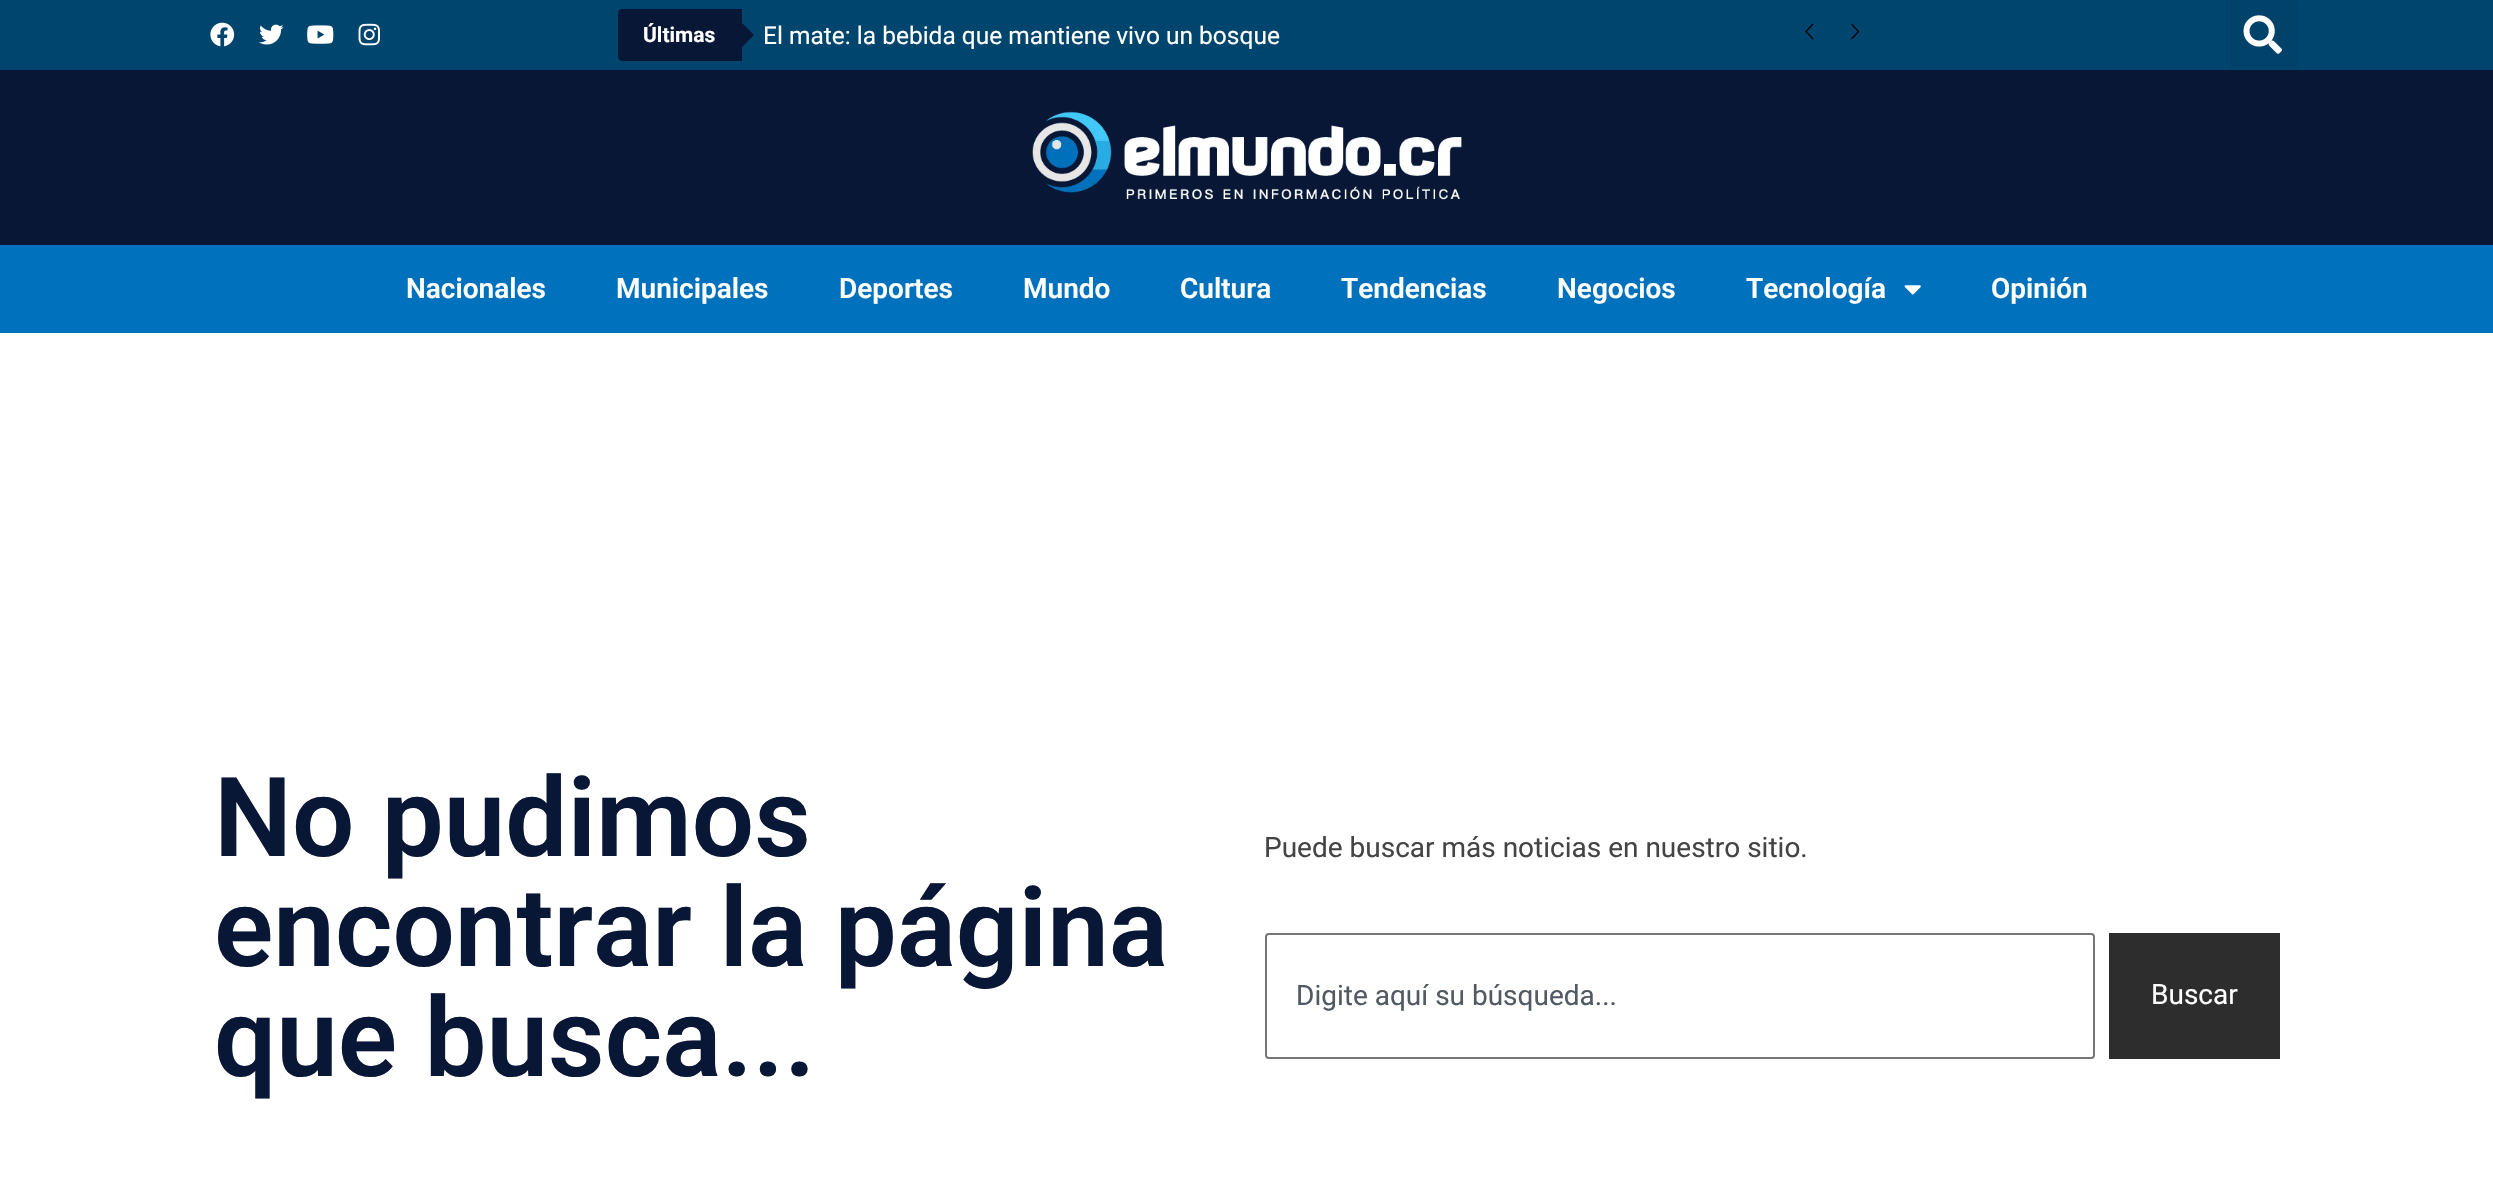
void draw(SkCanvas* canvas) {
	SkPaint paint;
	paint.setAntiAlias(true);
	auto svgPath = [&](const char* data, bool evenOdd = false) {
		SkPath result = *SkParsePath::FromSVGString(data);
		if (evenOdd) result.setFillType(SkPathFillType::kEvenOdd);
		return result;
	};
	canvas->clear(0xffffffff);
	paint.setColor(0xff00456e);
	canvas->drawRect(SkRect::MakeXYWH(0, 0, 2493, 70), paint);
	canvas->drawImageRect(SkImages::DeferredFromEncodedData(SkData::MakeFromFileName("img1.png")), SkRect::MakeXYWH(210, 22, 25, 25), SkSamplingOptions());
	canvas->drawImageRect(SkImages::DeferredFromEncodedData(SkData::MakeFromFileName("img2.png")), SkRect::MakeXYWH(259, 24, 25, 21), SkSamplingOptions());
	canvas->drawImageRect(SkImages::DeferredFromEncodedData(SkData::MakeFromFileName("img3.png")), SkRect::MakeXYWH(307, 25, 27, 19), SkSamplingOptions());
	canvas->drawImageRect(SkImages::DeferredFromEncodedData(SkData::MakeFromFileName("img4.png")), SkRect::MakeXYWH(358, 23, 22, 23), SkSamplingOptions());
	paint.setColor(0xff081736);
	canvas->drawPath(svgPath("M622 9H742V61H622C620 61 618 59 618 57V13C618 11 620 9 622 9Z"), paint);
	SkFont f1(fontMgr->matchFamilyStyle("Roboto", SkFontStyle::Bold()), 21);
	f1.setSubpixel(true);
	paint.setColor(0xffffffff);
	canvas->drawString("Últimas", 643, 42, f1, paint);
	paint.setColor(0xff081736);
	canvas->drawPath(svgPath("M740 49V21L754 35Z"), paint);
	SkFont f2(fontMgr->matchFamilyStyle("Roboto", SkFontStyle::Normal()), 24.5);
	f2.setSubpixel(true);
	paint.setColor(0xffffffff);
	canvas->drawString("El mate: la bebida que mantiene vivo un bosque", 763, 44, f2, paint);
	paint.setStroke(true);
	paint.setStrokeWidth(1.3);
	paint.setColor(0xff000000);
	canvas->drawPath(svgPath("M1813 39L1806 31.5L1813 24M1851.5 24L1858.5 31.5L1851.5 39"), paint);
	paint.setStroke(false);
	paint.setColor(0xff004269);
	canvas->drawRoundRect(SkRect::MakeXYWH(2228, 0, 70, 70), 5, 5, paint);
	canvas->drawImageRect(SkImages::DeferredFromEncodedData(SkData::MakeFromFileName("img5.png")), SkRect::MakeXYWH(2243, 15, 39, 39), SkSamplingOptions());
	paint.setColor(0xff081736);
	canvas->drawRect(SkRect::MakeXYWH(0, 70, 2493, 175), paint);
	canvas->drawImageRect(SkImages::DeferredFromEncodedData(SkData::MakeFromFileName("img6.png")), SkRect::MakeXYWH(1032, 111, 430, 89), SkSamplingOptions());
	paint.setColor(0xff0071bc);
	canvas->drawRect(SkRect::MakeXYWH(0, 245, 2493, 88), paint);
	SkFont f3(fontMgr->matchFamilyStyle("Roboto", SkFontStyle(600, SkFontStyle::kNormal_Width, SkFontStyle::kUpright_Slant)), 28);
	f3.setSubpixel(true);
	paint.setColor(0xffffffff);
	canvas->drawString("Nacionales", 406, 298, f3, paint);
	canvas->drawString("Municipales", 616, 298, f3, paint);
	canvas->drawString("Deportes", 839, 298, f3, paint);
	canvas->drawString("Mundo", 1023, 298, f3, paint);
	canvas->drawString("Cultura", 1180, 298, f3, paint);
	canvas->drawString("Tendencias", 1341, 298, f3, paint);
	canvas->drawString("Negocios", 1557, 298, f3, paint);
	canvas->drawString("Tecnología", 1746, 298, f3, paint);
	canvas->drawImageRect(SkImages::DeferredFromEncodedData(SkData::MakeFromFileName("img7.png")), SkRect::MakeXYWH(1904, 285, 17, 10), SkSamplingOptions());
	canvas->drawString("Opinión", 1991, 298, f3, paint);
	SkFont f4(fontMgr->matchFamilyStyle("Roboto", SkFontStyle(600, SkFontStyle::kNormal_Width, SkFontStyle::kUpright_Slant)), 110.25);
	f4.setSubpixel(true);
	paint.setColor(0xff081736);
	canvas->drawString("No pudimos", 214, 856, f4, paint);
	canvas->drawString("encontrar la página", 214, 966, f4, paint);
	canvas->drawString("que busca...", 214, 1076, f4, paint);
	SkFont f5(fontMgr->matchFamilyStyle("Roboto", SkFontStyle::Normal()), 28);
	f5.setSubpixel(true);
	paint.setColor(0xff444444);
	canvas->drawString("Puede buscar más noticias en nuestro sitio.", 1264, 857, f5, paint);
	paint.setStroke(true);
	paint.setStrokeWidth(2);
	paint.setColor(0xff767676);
	canvas->drawRoundRect(SkRect::MakeXYWH(1266, 934, 828, 124), 3, 3, paint);
	paint.setStroke(false);
	paint.setColor(0xff515962);
	canvas->drawString("Digite aquí su búsqueda...", 1296, 1005, f5, paint);
	paint.setColor(0xff2d2d2d);
	canvas->drawRect(SkRect::MakeXYWH(2109, 933, 171, 126), paint);
	paint.setColor(0xffffffff);
	canvas->drawString("Buscar", 2151, 1004, f5, paint);
}
